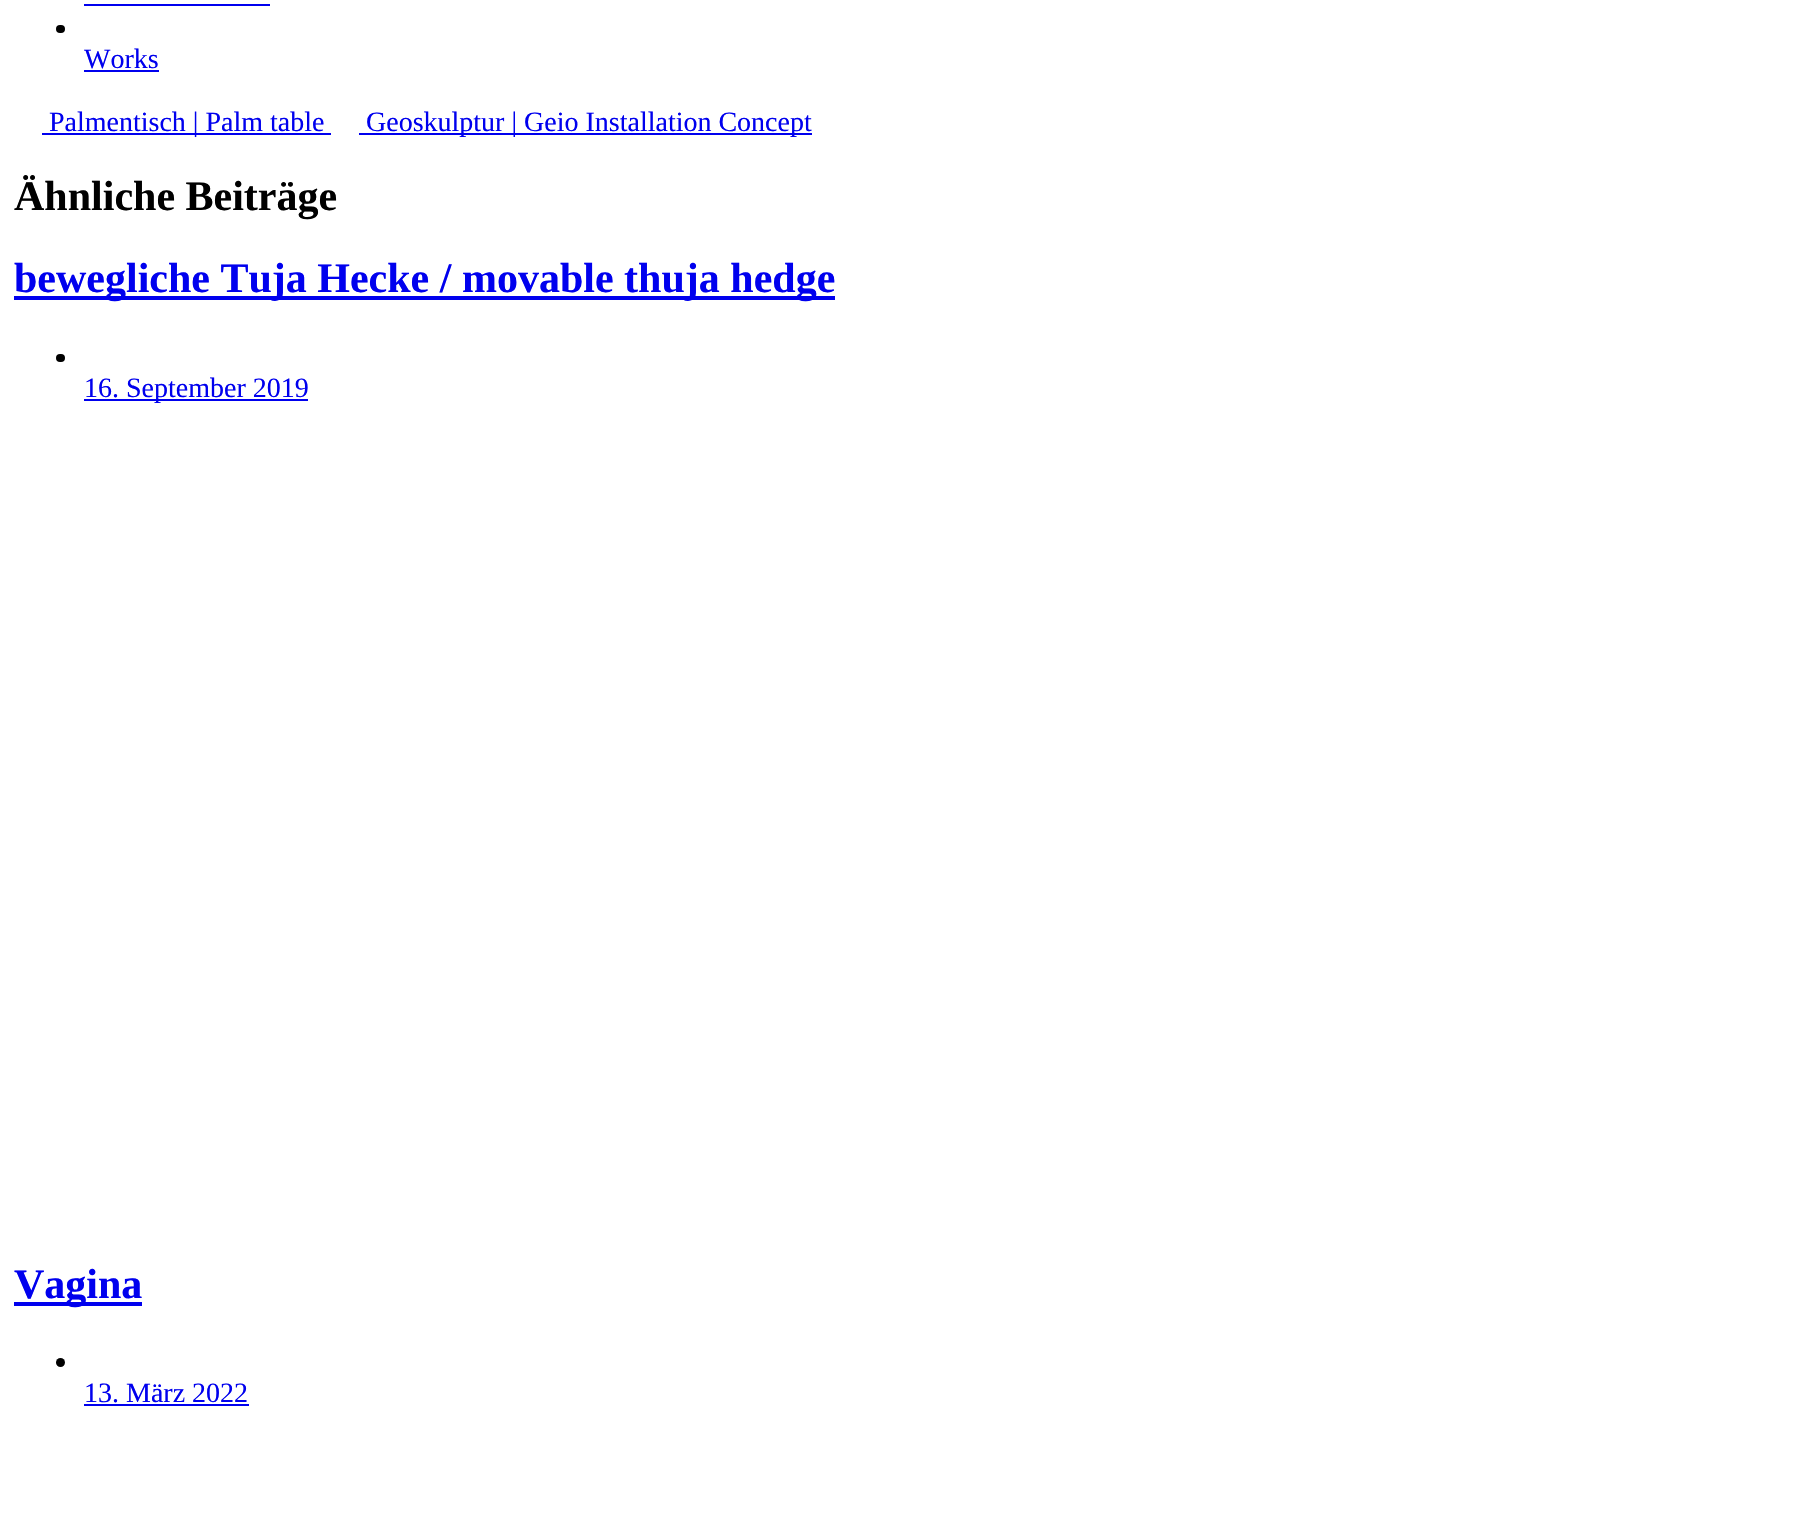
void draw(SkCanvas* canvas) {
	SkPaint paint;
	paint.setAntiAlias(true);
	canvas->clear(0xffffffff);
	paint.setColor(0xff0000ee);
	canvas->drawRect(SkRect::MakeXYWH(84, 4, 186, 2), paint);
	paint.setColor(0xff000000);
	canvas->drawRoundRect(SkRect::MakeXYWH(56, 25, 9, 8), 4, 4, paint);
	SkFont f1(fontMgr->matchFamilyStyle("Liberation Serif", SkFontStyle::Normal()), 28);
	f1.setSubpixel(true);
	paint.setColor(0xff0000ee);
	canvas->drawString("Works", 84, 68, f1, paint);
	canvas->drawRect(SkRect::MakeXYWH(84, 70, 75, 2), paint);
	canvas->drawRect(SkRect::MakeXYWH(42, 133, 289, 2), paint);
	canvas->drawString("Palmentisch | Palm table", 49, 131, f1, paint);
	canvas->drawRect(SkRect::MakeXYWH(359, 133, 453, 2), paint);
	canvas->drawString("Geoskulptur | Geio Installation Concept", 366, 131, f1, paint);
	SkFont f2(fontMgr->matchFamilyStyle("Liberation Serif", SkFontStyle::Bold()), 42);
	f2.setSubpixel(true);
	paint.setColor(0xff000000);
	canvas->drawString("Ähnliche Beiträge", 14, 210, f2, paint);
	paint.setColor(0xff0000ee);
	canvas->drawRect(SkRect::MakeXYWH(14, 296, 821, 4), paint);
	canvas->drawString("bewegliche Tuja Hecke / movable thuja hedge", 14, 292, f2, paint);
	paint.setColor(0xff000000);
	canvas->drawRoundRect(SkRect::MakeXYWH(56, 354, 9, 8), 4, 4, paint);
	paint.setColor(0xff0000ee);
	canvas->drawRect(SkRect::MakeXYWH(84, 399, 224, 2), paint);
	canvas->drawString("16. September 2019", 84, 397, f1, paint);
	canvas->drawRect(SkRect::MakeXYWH(14, 1302, 128, 4), paint);
	canvas->drawString("Vagina", 14, 1298, f2, paint);
	paint.setColor(0xff000000);
	canvas->drawCircle(60.5, 1362.5, 4.5, paint);
	paint.setColor(0xff0000ee);
	canvas->drawString("13. März 2022", 84, 1402, f1, paint);
	canvas->drawRect(SkRect::MakeXYWH(84, 1404, 165, 2), paint);
}
